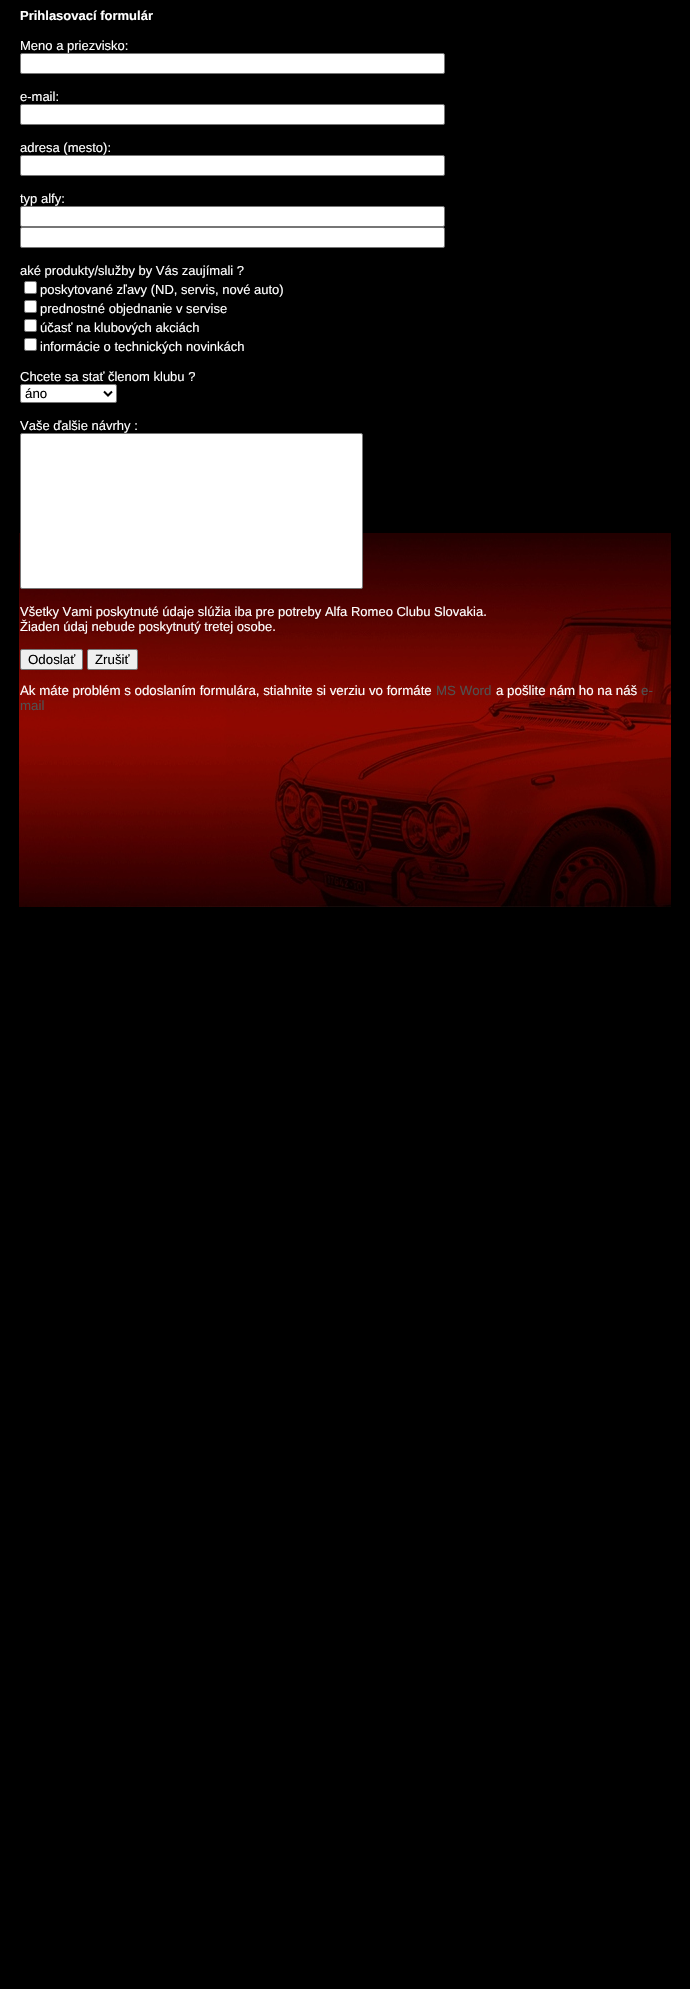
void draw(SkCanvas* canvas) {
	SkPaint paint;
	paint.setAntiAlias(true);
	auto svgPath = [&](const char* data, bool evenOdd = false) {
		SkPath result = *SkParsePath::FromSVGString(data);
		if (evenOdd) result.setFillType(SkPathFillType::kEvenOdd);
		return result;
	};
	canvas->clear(0xff000000);
	canvas->drawImageRect(SkImages::DeferredFromEncodedData(SkData::MakeFromFileName("img1.png")), SkRect::MakeXYWH(19, 533, 652, 374), SkSamplingOptions());
	SkFont f1(fontMgr->matchFamilyStyle("Liberation Sans", SkFontStyle::Bold()), 13);
	f1.setSubpixel(true);
	paint.setColor(0xffffffff);
	canvas->drawString("Prihlasovací formulár", 20, 20, f1, paint);
	SkFont f2(fontMgr->matchFamilyStyle("Liberation Sans", SkFontStyle::Normal()), 13);
	f2.setSubpixel(true);
	canvas->drawString("Meno a priezvisko:", 20, 50, f2, paint);
	canvas->drawRoundRect(SkRect::MakeXYWH(20.5, 53.5, 424, 20), 1.5, 1.5, paint);
	paint.setStroke(true);
	paint.setStrokeWidth(1);
	paint.setColor(0xff767676);
	canvas->drawRoundRect(SkRect::MakeXYWH(20.5, 53.5, 424, 20), 1.5, 1.5, paint);
	paint.setStroke(false);
	paint.setColor(0xffffffff);
	canvas->drawString("e-mail:", 20, 101, f2, paint);
	canvas->drawRoundRect(SkRect::MakeXYWH(20.5, 104.5, 424, 20), 1.5, 1.5, paint);
	paint.setStroke(true);
	paint.setColor(0xff767676);
	canvas->drawRoundRect(SkRect::MakeXYWH(20.5, 104.5, 424, 20), 1.5, 1.5, paint);
	paint.setStroke(false);
	paint.setColor(0xffffffff);
	canvas->drawString("adresa (mesto):", 20, 152, f2, paint);
	canvas->drawRoundRect(SkRect::MakeXYWH(20.5, 155.5, 424, 20), 1.5, 1.5, paint);
	paint.setStroke(true);
	paint.setColor(0xff767676);
	canvas->drawRoundRect(SkRect::MakeXYWH(20.5, 155.5, 424, 20), 1.5, 1.5, paint);
	paint.setStroke(false);
	paint.setColor(0xffffffff);
	canvas->drawString("typ alfy:", 20, 203, f2, paint);
	canvas->drawRoundRect(SkRect::MakeXYWH(20.5, 206.5, 424, 20), 1.5, 1.5, paint);
	paint.setStroke(true);
	paint.setColor(0xff767676);
	canvas->drawRoundRect(SkRect::MakeXYWH(20.5, 206.5, 424, 20), 1.5, 1.5, paint);
	paint.setStroke(false);
	paint.setColor(0xffffffff);
	canvas->drawRoundRect(SkRect::MakeXYWH(20.5, 227.5, 424, 20), 1.5, 1.5, paint);
	paint.setStroke(true);
	paint.setColor(0xff767676);
	canvas->drawRoundRect(SkRect::MakeXYWH(20.5, 227.5, 424, 20), 1.5, 1.5, paint);
	paint.setStroke(false);
	paint.setColor(0xffffffff);
	canvas->drawString("aké produkty/služby by Vás zaujímali ?", 20, 275, f2, paint);
	canvas->drawRoundRect(SkRect::MakeXYWH(24.5, 281.5, 12, 12), 1.5, 1.5, paint);
	paint.setStroke(true);
	paint.setColor(0xff767676);
	canvas->drawRoundRect(SkRect::MakeXYWH(24.5, 281.5, 12, 12), 1.5, 1.5, paint);
	paint.setStroke(false);
	paint.setColor(0xffffffff);
	canvas->drawString("poskytované zľavy (ND, servis, nové auto)", 40, 294, f2, paint);
	canvas->drawRoundRect(SkRect::MakeXYWH(24.5, 300.5, 12, 12), 1.5, 1.5, paint);
	paint.setStroke(true);
	paint.setColor(0xff767676);
	canvas->drawRoundRect(SkRect::MakeXYWH(24.5, 300.5, 12, 12), 1.5, 1.5, paint);
	paint.setStroke(false);
	paint.setColor(0xffffffff);
	canvas->drawString("prednostné objednanie v servise", 40, 313, f2, paint);
	canvas->drawRoundRect(SkRect::MakeXYWH(24.5, 319.5, 12, 12), 1.5, 1.5, paint);
	paint.setStroke(true);
	paint.setColor(0xff767676);
	canvas->drawRoundRect(SkRect::MakeXYWH(24.5, 319.5, 12, 12), 1.5, 1.5, paint);
	paint.setStroke(false);
	paint.setColor(0xffffffff);
	canvas->drawString("účasť na klubových akciách", 40, 332, f2, paint);
	canvas->drawRoundRect(SkRect::MakeXYWH(24.5, 338.5, 12, 12), 1.5, 1.5, paint);
	paint.setStroke(true);
	paint.setColor(0xff767676);
	canvas->drawRoundRect(SkRect::MakeXYWH(24.5, 338.5, 12, 12), 1.5, 1.5, paint);
	paint.setStroke(false);
	paint.setColor(0xffffffff);
	canvas->drawString("informácie o technických novinkách", 40, 351, f2, paint);
	canvas->drawString("Chcete sa stať členom klubu ?", 20, 381, f2, paint);
	canvas->drawRoundRect(SkRect::MakeXYWH(20.5, 384.5, 96, 18), 1.5, 1.5, paint);
	paint.setStroke(true);
	paint.setColor(0xff767676);
	canvas->drawRoundRect(SkRect::MakeXYWH(20.5, 384.5, 96, 18), 1.5, 1.5, paint);
	paint.setStrokeWidth(2);
	paint.setColor(0xff000000);
	canvas->drawPath(svgPath("M104 391.5L108 395.5L112 391.5"), paint);
	SkFont f3(fontMgr->matchFamilyStyle("Liberation Sans", SkFontStyle::Normal()), 13.3);
	f3.setSubpixel(true);
	paint.setStroke(false);
	canvas->drawString("áno", 25, 398, f3, paint);
	paint.setColor(0xffffffff);
	canvas->drawString("Vaše ďalšie návrhy :", 20, 430, f2, paint);
	canvas->drawRoundRect(SkRect::MakeXYWH(20.5, 433.5, 342, 155), 1.5, 1.5, paint);
	paint.setStroke(true);
	paint.setStrokeWidth(1);
	paint.setColor(0xff767676);
	canvas->drawRoundRect(SkRect::MakeXYWH(20.5, 433.5, 342, 155), 1.5, 1.5, paint);
	paint.setStroke(false);
	paint.setColor(0xffffffff);
	canvas->drawString("Všetky Vami poskytnuté údaje slúžia iba pre potreby Alfa Romeo Clubu Slovakia.", 20, 616, f2, paint);
	canvas->drawString("Žiaden údaj nebude poskytnutý tretej osobe.", 20, 631, f2, paint);
	paint.setColor(0xffefefef);
	canvas->drawRoundRect(SkRect::MakeXYWH(20.5, 649.5, 62, 20), 1.5, 1.5, paint);
	paint.setStroke(true);
	paint.setColor(0xff767676);
	canvas->drawRoundRect(SkRect::MakeXYWH(20.5, 649.5, 62, 20), 1.5, 1.5, paint);
	paint.setStroke(false);
	paint.setColor(0xff000000);
	canvas->drawString("Odoslať", 28, 664, f3, paint);
	paint.setColor(0xffefefef);
	canvas->drawRoundRect(SkRect::MakeXYWH(87.5, 649.5, 50, 20), 1.5, 1.5, paint);
	paint.setStroke(true);
	paint.setColor(0xff767676);
	canvas->drawRoundRect(SkRect::MakeXYWH(87.5, 649.5, 50, 20), 1.5, 1.5, paint);
	paint.setStroke(false);
	paint.setColor(0xff000000);
	canvas->drawString("Zrušiť", 95, 664, f3, paint);
	paint.setColor(0xffffffff);
	canvas->drawString("Ak máte problém s odoslaním formulára, stiahnite si verziu vo formáte", 20, 695, f3, paint);
	paint.setColor(0xff505050);
	canvas->drawString("MS Word", 436, 695, f3, paint);
	paint.setColor(0xffffffff);
	canvas->drawString("a pošlite nám ho na náš", 496, 695, f3, paint);
	paint.setColor(0xff505050);
	canvas->drawString("e-", 641, 695, f3, paint);
	canvas->drawString("mail", 20, 710, f3, paint);
}
